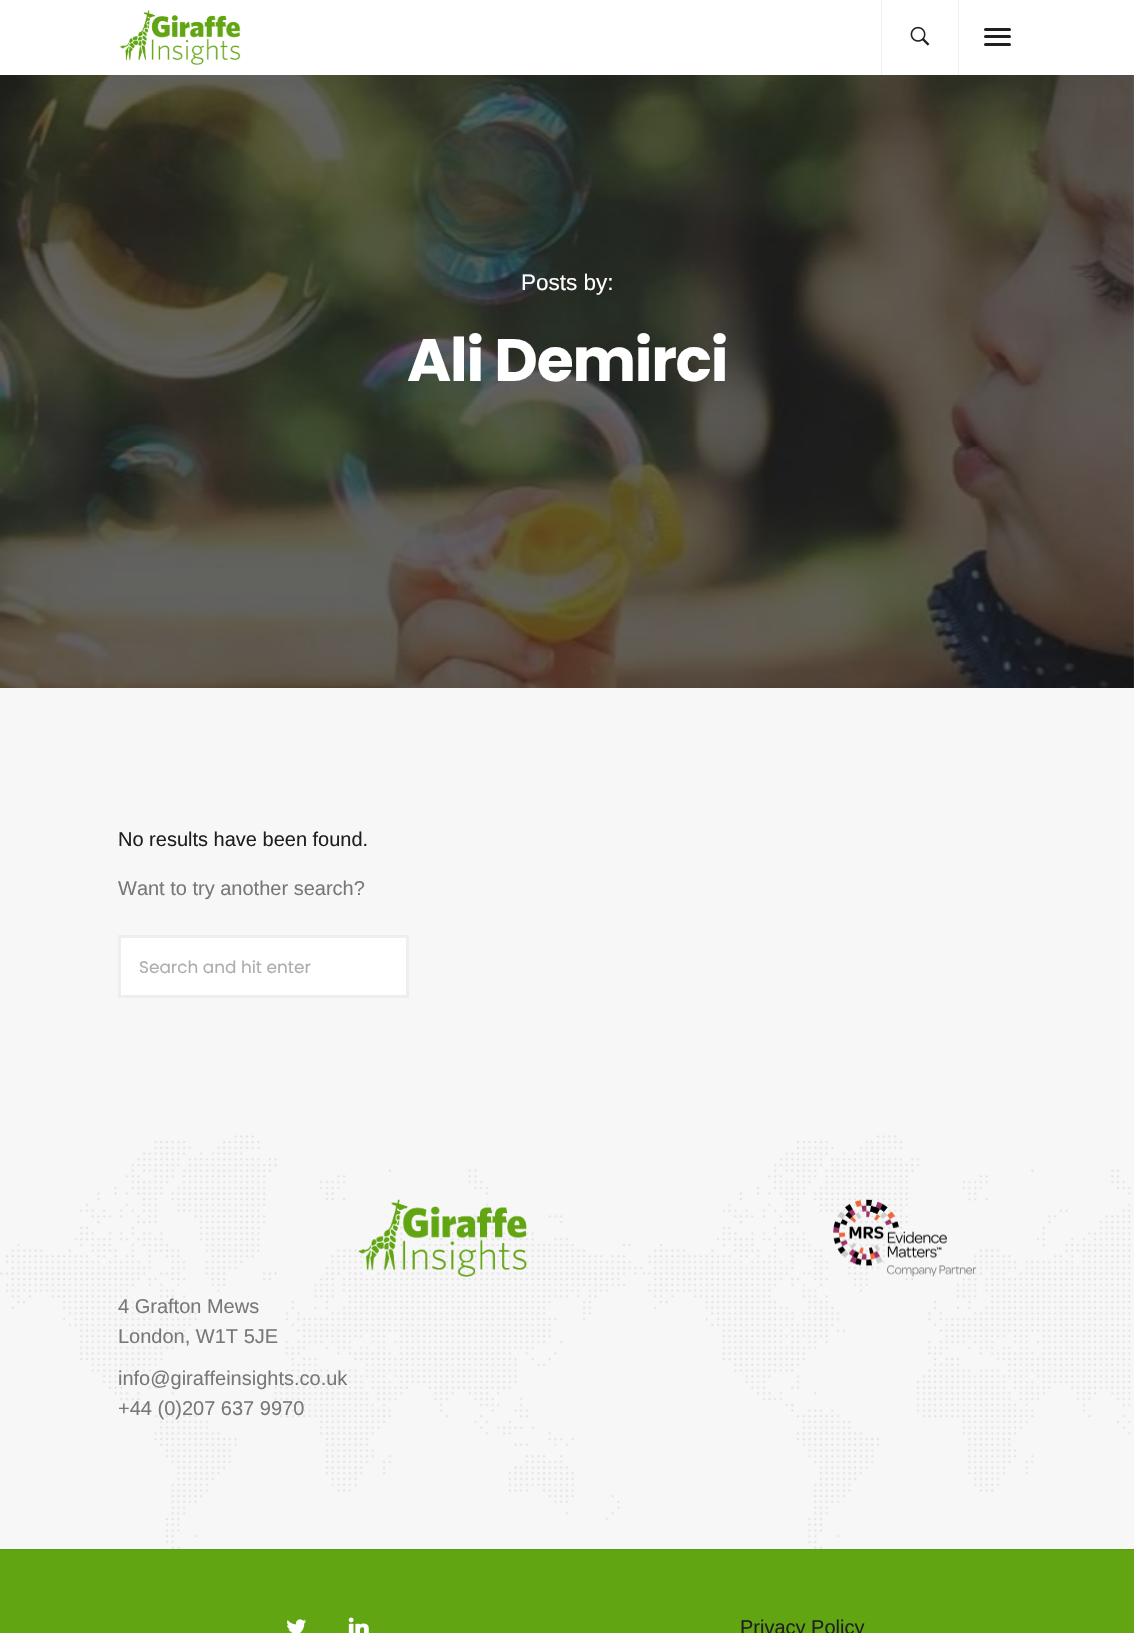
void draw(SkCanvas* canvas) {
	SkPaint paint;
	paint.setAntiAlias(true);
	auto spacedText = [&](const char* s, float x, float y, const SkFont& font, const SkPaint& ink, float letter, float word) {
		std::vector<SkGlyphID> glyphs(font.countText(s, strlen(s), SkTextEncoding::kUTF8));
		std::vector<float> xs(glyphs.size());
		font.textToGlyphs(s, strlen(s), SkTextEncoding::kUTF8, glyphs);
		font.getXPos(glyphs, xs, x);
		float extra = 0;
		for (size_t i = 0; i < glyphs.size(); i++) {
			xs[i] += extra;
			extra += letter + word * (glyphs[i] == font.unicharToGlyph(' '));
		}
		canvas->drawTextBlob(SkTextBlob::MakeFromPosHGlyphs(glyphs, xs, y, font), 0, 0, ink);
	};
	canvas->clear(0xffffffff);
	canvas->drawImageRect(SkImages::DeferredFromEncodedData(SkData::MakeFromFileName("img3.png")), SkRect::MakeXYWH(0, 75, 1134, 613), SkSamplingOptions());
	paint.setColor(0x121f1f1f);
	paint.setMaskFilter(SkMaskFilter::MakeBlur(kNormal_SkBlurStyle, 9.5));
	canvas->drawRect(SkRect::MakeXYWH(6, 6, 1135, 75), paint);
	paint.setMaskFilter(nullptr);
	paint.setColor(0xffffffff);
	canvas->drawRect(SkRect::MakeXYWH(0, 0, 1134, 75), paint);
	canvas->drawImageRect(SkImages::DeferredFromEncodedData(SkData::MakeFromFileName("img1.png")), SkRect::MakeXYWH(120, 10, 121, 55), SkSamplingOptions());
	paint.setColor(0xffeeeeee);
	canvas->drawRect(SkRect::MakeXYWH(881, 0, 1, 75), paint);
	canvas->drawImageRect(SkImages::DeferredFromEncodedData(SkData::MakeFromFileName("img2.png")), SkRect::MakeXYWH(910, 26, 20, 20), SkSamplingOptions());
	canvas->drawRect(SkRect::MakeXYWH(958, 0, 1, 75), paint);
	paint.setColor(0xff1f1f1f);
	canvas->drawRoundRect(SkRect::MakeXYWH(984, 35, 27, 3), 1.5, 1.5, paint);
	canvas->drawRoundRect(SkRect::MakeXYWH(984, 28, 27, 3), 1.5, 1.5, paint);
	canvas->drawRoundRect(SkRect::MakeXYWH(984, 43, 27, 3), 1.5, 1.5, paint);
	SkFont f1(fontMgr->matchFamilyStyle("Liberation Sans", SkFontStyle::Normal()), 22.5);
	f1.setSubpixel(true);
	paint.setColor(0xffffffff);
	canvas->drawString("Posts by:", 521, 290, f1, paint);
	SkFont f2(fontMgr->matchFamilyStyle("Poppins", SkFontStyle::Bold()), 60);
	f2.setSubpixel(true);
	spacedText("Ali Demirci", 407, 381, f2, paint, -1.25, 0);
	paint.setColor(0xfff7f7f7);
	canvas->drawRect(SkRect::MakeXYWH(0, 688, 1134, 861), paint);
	SkFont f3(fontMgr->matchFamilyStyle("Liberation Sans", SkFontStyle::Normal()), 20);
	f3.setSubpixel(true);
	paint.setColor(0xff1f1f1f);
	canvas->drawString("No results have been found.", 118, 846, f3, paint);
	paint.setColor(0xff787878);
	canvas->drawString("Want to try another search?", 118, 895, f3, paint);
	paint.setColor(0xffffffff);
	canvas->drawRect(SkRect::MakeXYWH(119.5, 936.5, 288, 60), paint);
	paint.setStroke(true);
	paint.setStrokeWidth(3);
	paint.setColor(0xffeeeeee);
	canvas->drawRect(SkRect::MakeXYWH(119.5, 936.5, 288, 60), paint);
	SkFont f4(fontMgr->matchFamilyStyle("Poppins", SkFontStyle::Normal()), 16.9);
	f4.setSubpixel(true);
	paint.setStroke(false);
	paint.setColor(0xffadadad);
	canvas->drawString("Search and hit enter", 139, 973, f4, paint);
	canvas->drawImageRect(SkImages::DeferredFromEncodedData(SkData::MakeFromFileName("img4.png")), SkRect::MakeXYWH(0, 1135, 1131, 414), SkSamplingOptions());
	canvas->drawImageRect(SkImages::DeferredFromEncodedData(SkData::MakeFromFileName("img5.png")), SkRect::MakeXYWH(358, 1199, 169, 78), SkSamplingOptions());
	canvas->drawImageRect(SkImages::DeferredFromEncodedData(SkData::MakeFromFileName("img6.png")), SkRect::MakeXYWH(833, 1199, 144, 78), SkSamplingOptions());
	paint.setColor(0xff787878);
	canvas->drawString("4 Grafton Mews", 118, 1313, f3, paint);
	canvas->drawString("London, W1T 5JE", 118, 1343, f3, paint);
	canvas->drawString("info@giraffeinsights.co.uk", 118, 1385, f3, paint);
	canvas->drawString("+44 (0)207 637 9970", 118, 1415, f3, paint);
	paint.setColor(0xff61a512);
	canvas->drawRect(SkRect::MakeXYWH(0, 1550, 1134, 83), paint);
	paint.setColor(0xff5c9a13);
	canvas->drawRect(SkRect::MakeXYWH(0, 1549, 1134, 1), paint);
	canvas->drawImageRect(SkImages::DeferredFromEncodedData(SkData::MakeFromFileName("img7.png")), SkRect::MakeXYWH(287, 1619, 20, 14), SkSamplingOptions());
	canvas->drawImageRect(SkImages::DeferredFromEncodedData(SkData::MakeFromFileName("img8.png")), SkRect::MakeXYWH(348, 1617, 21, 16), SkSamplingOptions());
	paint.setColor(0xff1f1f1f);
	canvas->drawString("Privacy Policy", 740, 1634, f3, paint);
}
